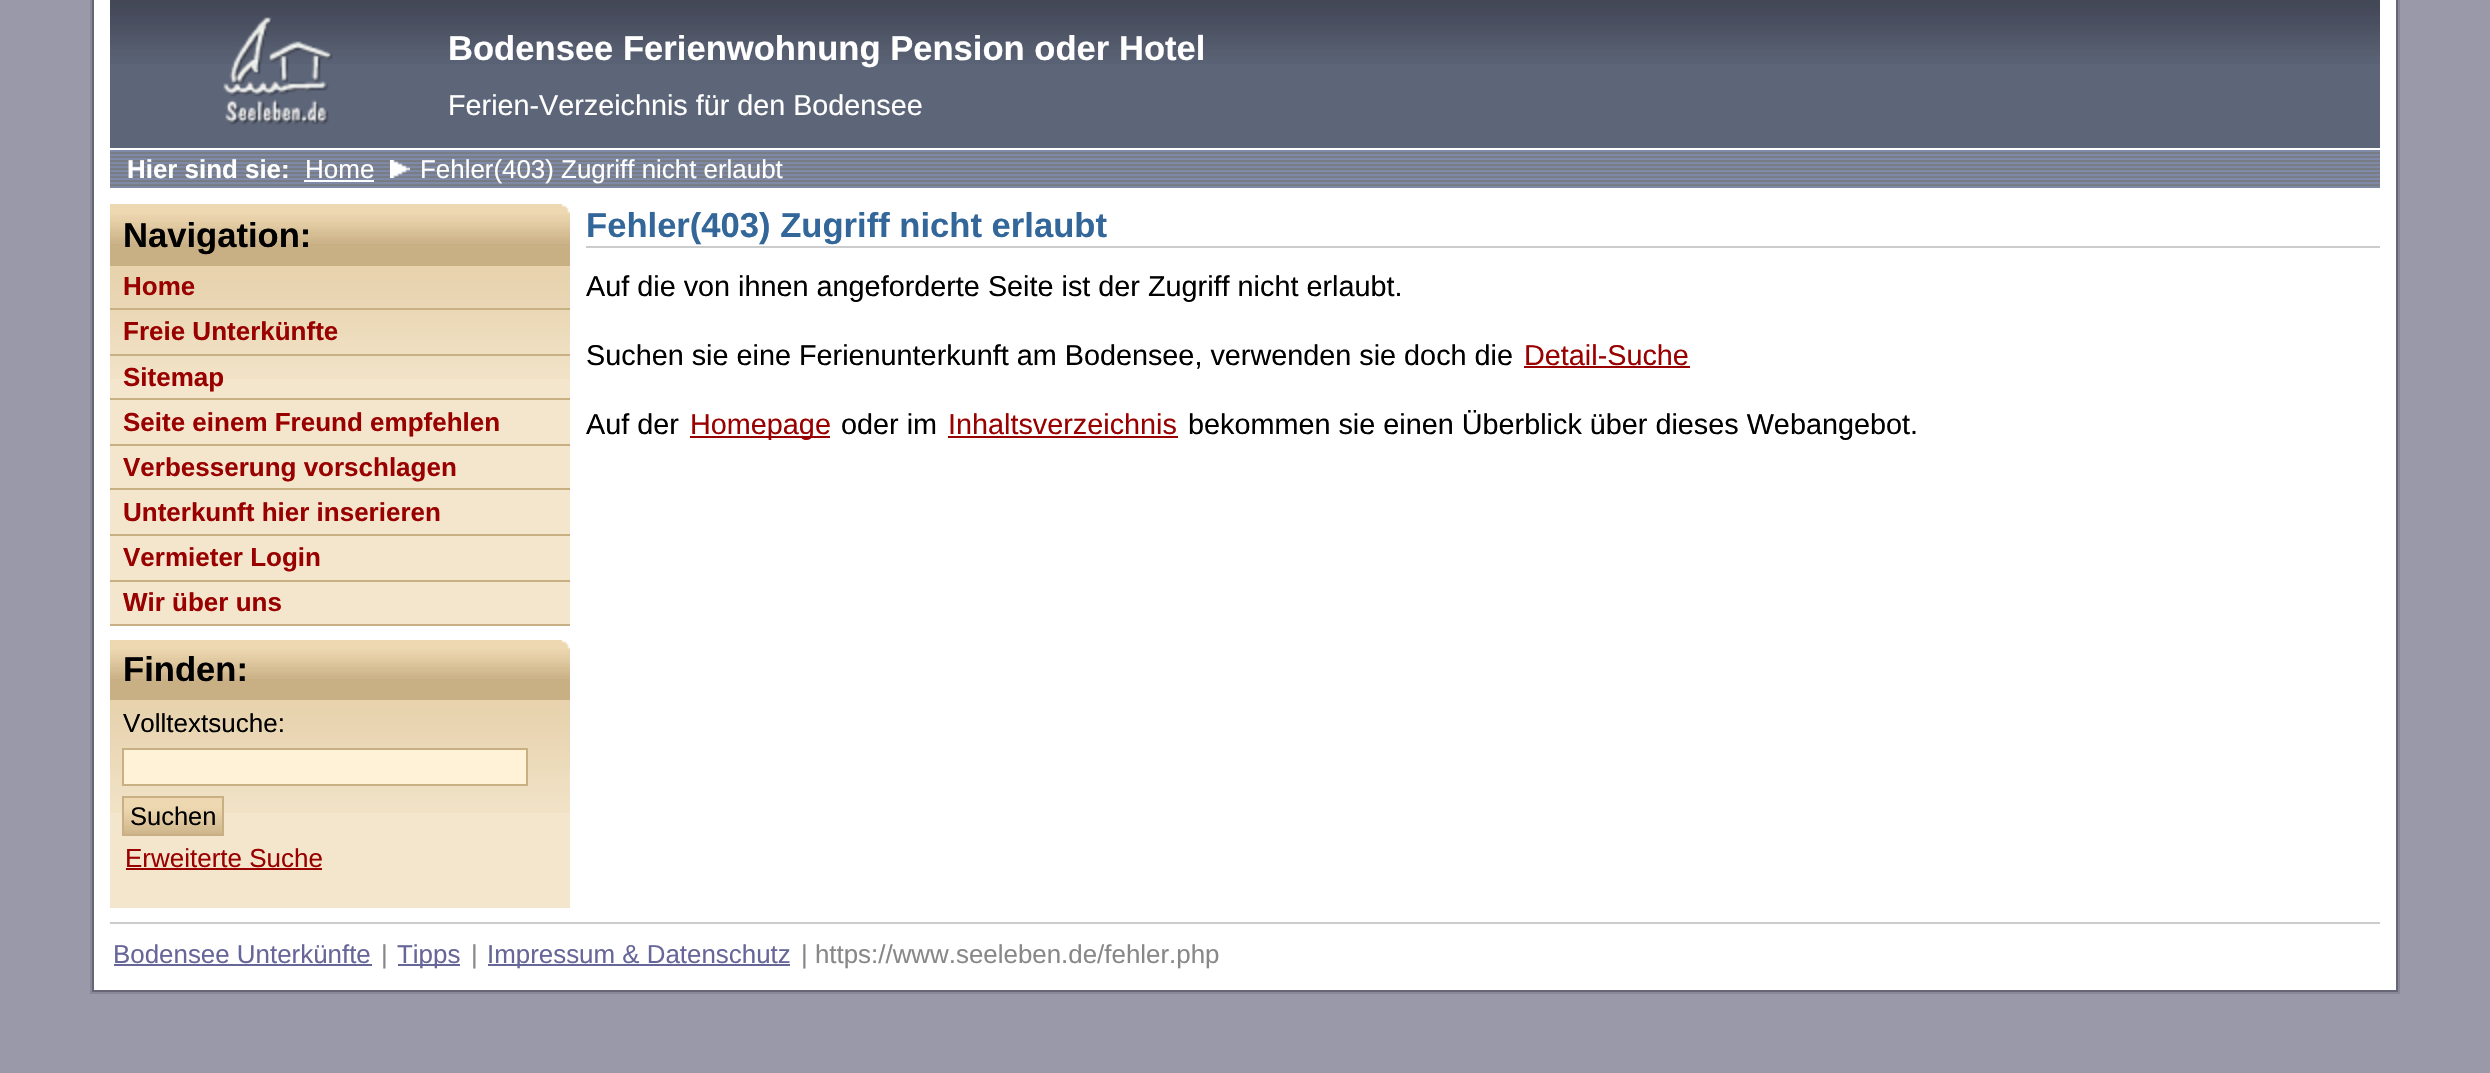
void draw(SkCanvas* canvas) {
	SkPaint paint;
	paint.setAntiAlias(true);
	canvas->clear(0xff9999aa);
	paint.setStroke(true);
	paint.setStrokeWidth(2);
	paint.setColor(0xff888899);
	canvas->drawRect(SkRect::MakeXYWH(91, -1, 2308, 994), paint);
	paint.setStroke(false);
	paint.setColor(0xffffffff);
	canvas->drawRect(SkRect::MakeXYWH(93, -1, 2304, 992), paint);
	paint.setStroke(true);
	paint.setColor(0xff666677);
	canvas->drawRect(SkRect::MakeXYWH(93, -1, 2304, 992), paint);
	paint.setStroke(false);
	paint.setColor(0xff5d6679);
	canvas->drawRect(SkRect::MakeXYWH(110, 64, 2270, 84), paint);
	canvas->drawImageRect(SkImages::DeferredFromEncodedData(SkData::MakeFromFileName("img1.png")), SkRect::MakeXYWH(110, 0, 2270, 64), SkSamplingOptions());
	canvas->drawImageRect(SkImages::DeferredFromEncodedData(SkData::MakeFromFileName("img2.png")), SkRect::MakeXYWH(223, 17, 110, 108), SkSamplingOptions());
	SkFont f1(fontMgr->matchFamilyStyle("Liberation Sans", SkFontStyle::Bold()), 34.6);
	f1.setSubpixel(true);
	paint.setColor(0xffffffff);
	canvas->drawString("Bodensee Ferienwohnung Pension oder Hotel", 448, 60, f1, paint);
	SkFont f2(fontMgr->matchFamilyStyle("Liberation Sans", SkFontStyle::Normal()), 28.75);
	f2.setSubpixel(true);
	canvas->drawString("Ferien-Verzeichnis für den Bodensee", 448, 115, f2, paint);
	canvas->drawImageRect(SkImages::DeferredFromEncodedData(SkData::MakeFromFileName("img3.png")), SkRect::MakeXYWH(110, 150, 2270, 38), SkSamplingOptions());
	SkFont f3(fontMgr->matchFamilyStyle("Liberation Sans", SkFontStyle::Bold()), 25.9);
	f3.setSubpixel(true);
	canvas->drawString("Hier sind sie:", 127, 178, f3, paint);
	SkFont f4(fontMgr->matchFamilyStyle("Liberation Sans", SkFontStyle::Normal()), 26);
	f4.setSubpixel(true);
	canvas->drawString("Home", 305, 178, f4, paint);
	canvas->drawRect(SkRect::MakeXYWH(304, 180, 70, 2), paint);
	canvas->drawImageRect(SkImages::DeferredFromEncodedData(SkData::MakeFromFileName("img4.png")), SkRect::MakeXYWH(390, 160, 20, 18), SkSamplingOptions());
	SkFont f5(fontMgr->matchFamilyStyle("Liberation Sans", SkFontStyle::Normal()), 25.9);
	f5.setSubpixel(true);
	canvas->drawString("Fehler(403) Zugriff nicht erlaubt", 420, 178, f5, paint);
	paint.setColor(0xffc9af84);
	canvas->drawRect(SkRect::MakeXYWH(110, 244, 460, 22), paint);
	canvas->drawImageRect(SkImages::DeferredFromEncodedData(SkData::MakeFromFileName("img5.png")), SkRect::MakeXYWH(110, 204, 460, 40), SkSamplingOptions());
	paint.setColor(0xff000000);
	canvas->drawString("Navigation:", 123, 247, f1, paint);
	paint.setColor(0xfff4e6cc);
	canvas->drawRect(SkRect::MakeXYWH(110, 379, 460, 245), paint);
	canvas->drawImageRect(SkImages::DeferredFromEncodedData(SkData::MakeFromFileName("img6.png")), SkRect::MakeXYWH(110, 266, 460, 113), SkSamplingOptions());
	paint.setColor(0xffc9af84);
	canvas->drawRect(SkRect::MakeXYWH(110, 308, 460, 2), paint);
	SkFont f6(fontMgr->matchFamilyStyle("Liberation Sans", SkFontStyle::Bold()), 26);
	f6.setSubpixel(true);
	paint.setColor(0xff990000);
	canvas->drawString("Home", 123, 295, f6, paint);
	paint.setColor(0xffc9af84);
	canvas->drawRect(SkRect::MakeXYWH(110, 354, 460, 2), paint);
	paint.setColor(0xff990000);
	canvas->drawString("Freie Unterkünfte", 123, 340, f6, paint);
	paint.setColor(0xffc9af84);
	canvas->drawRect(SkRect::MakeXYWH(110, 398, 460, 2), paint);
	paint.setColor(0xff990000);
	canvas->drawString("Sitemap", 123, 386, f6, paint);
	paint.setColor(0xffc9af84);
	canvas->drawRect(SkRect::MakeXYWH(110, 444, 460, 2), paint);
	paint.setColor(0xff990000);
	canvas->drawString("Seite einem Freund empfehlen", 123, 431, f6, paint);
	paint.setColor(0xffc9af84);
	canvas->drawRect(SkRect::MakeXYWH(110, 488, 460, 2), paint);
	paint.setColor(0xff990000);
	canvas->drawString("Verbesserung vorschlagen", 123, 476, f6, paint);
	paint.setColor(0xffc9af84);
	canvas->drawRect(SkRect::MakeXYWH(110, 534, 460, 2), paint);
	paint.setColor(0xff990000);
	canvas->drawString("Unterkunft hier inserieren", 123, 521, f6, paint);
	paint.setColor(0xffc9af84);
	canvas->drawRect(SkRect::MakeXYWH(110, 580, 460, 2), paint);
	paint.setColor(0xff990000);
	canvas->drawString("Vermieter Login", 123, 566, f6, paint);
	paint.setColor(0xffc9af84);
	canvas->drawRect(SkRect::MakeXYWH(110, 624, 460, 2), paint);
	paint.setColor(0xff990000);
	canvas->drawString("Wir über uns", 123, 611, f6, paint);
	paint.setColor(0xffc9af84);
	canvas->drawRect(SkRect::MakeXYWH(110, 679, 460, 21), paint);
	canvas->drawImageRect(SkImages::DeferredFromEncodedData(SkData::MakeFromFileName("img7.png")), SkRect::MakeXYWH(110, 640, 460, 39), SkSamplingOptions());
	paint.setColor(0xff000000);
	canvas->drawString("Finden:", 123, 681, f1, paint);
	paint.setColor(0xfff4e6cc);
	canvas->drawRect(SkRect::MakeXYWH(110, 813, 460, 95), paint);
	canvas->drawImageRect(SkImages::DeferredFromEncodedData(SkData::MakeFromFileName("img6.png")), SkRect::MakeXYWH(110, 700, 460, 113), SkSamplingOptions());
	paint.setColor(0xff000000);
	canvas->drawString("Volltextsuche:", 123, 732, f4, paint);
	paint.setColor(0xfffff2d6);
	canvas->drawRect(SkRect::MakeXYWH(123, 749, 404, 36), paint);
	paint.setStroke(true);
	paint.setColor(0xffc9af84);
	canvas->drawRect(SkRect::MakeXYWH(123, 749, 404, 36), paint);
	canvas->drawImageRect(SkImages::DeferredFromEncodedData(SkData::MakeFromFileName("img8.png")), SkRect::MakeXYWH(124, 798, 98, 36), SkSamplingOptions());
	canvas->drawRect(SkRect::MakeXYWH(123, 797, 100, 38), paint);
	SkFont f7(fontMgr->matchFamilyStyle("Liberation Sans", SkFontStyle::Normal()), 25.5);
	f7.setSubpixel(true);
	paint.setStroke(false);
	paint.setColor(0xff000000);
	canvas->drawString("Suchen", 130, 825, f7, paint);
	paint.setColor(0xff990000);
	canvas->drawString("Erweiterte Suche", 125, 867, f4, paint);
	canvas->drawRect(SkRect::MakeXYWH(126, 868, 196, 2), paint);
	paint.setColor(0xffcccccc);
	canvas->drawRect(SkRect::MakeXYWH(586, 246, 1794, 2), paint);
	paint.setColor(0xff336699);
	canvas->drawString("Fehler(403) Zugriff nicht erlaubt", 586, 237, f1, paint);
	SkFont f8(fontMgr->matchFamilyStyle("Liberation Sans", SkFontStyle::Normal()), 28.8);
	f8.setSubpixel(true);
	paint.setColor(0xff000000);
	canvas->drawString("Auf die von ihnen angeforderte Seite ist der Zugriff nicht erlaubt.", 586, 296, f8, paint);
	canvas->drawString("Suchen sie eine Ferienunterkunft am Bodensee, verwenden sie doch die", 586, 365, f8, paint);
	paint.setColor(0xff990000);
	canvas->drawString("Detail-Suche", 1524, 365, f8, paint);
	canvas->drawRect(SkRect::MakeXYWH(1524, 366, 166, 2), paint);
	paint.setColor(0xff000000);
	canvas->drawString("Auf der", 586, 434, f8, paint);
	paint.setColor(0xff990000);
	canvas->drawRect(SkRect::MakeXYWH(690, 436, 140, 2), paint);
	canvas->drawString("Homepage", 690, 434, f8, paint);
	paint.setColor(0xff000000);
	canvas->drawString("oder im", 841, 434, f8, paint);
	paint.setColor(0xff990000);
	canvas->drawString("Inhaltsverzeichnis", 948, 434, f8, paint);
	canvas->drawRect(SkRect::MakeXYWH(948, 436, 230, 2), paint);
	paint.setColor(0xff000000);
	canvas->drawString("bekommen sie einen Überblick über dieses Webangebot.", 1188, 434, f8, paint);
	paint.setColor(0xffcccccc);
	canvas->drawRect(SkRect::MakeXYWH(110, 922, 2270, 2), paint);
	paint.setColor(0xff666699);
	canvas->drawString("Bodensee Unterkünfte", 113, 963, f5, paint);
	canvas->drawRect(SkRect::MakeXYWH(114, 964, 258, 2), paint);
	paint.setColor(0xff888888);
	canvas->drawString("|", 381, 963, f5, paint);
	paint.setColor(0xff666699);
	canvas->drawRect(SkRect::MakeXYWH(398, 964, 62, 2), paint);
	canvas->drawString("Tipps", 397, 963, f5, paint);
	paint.setColor(0xff888888);
	canvas->drawString("|", 471, 963, f5, paint);
	paint.setColor(0xff666699);
	canvas->drawRect(SkRect::MakeXYWH(488, 964, 302, 2), paint);
	canvas->drawString("Impressum & Datenschutz", 487, 963, f5, paint);
	paint.setColor(0xff888888);
	canvas->drawString("| https://www.seeleben.de/fehler.php", 801, 963, f5, paint);
}
